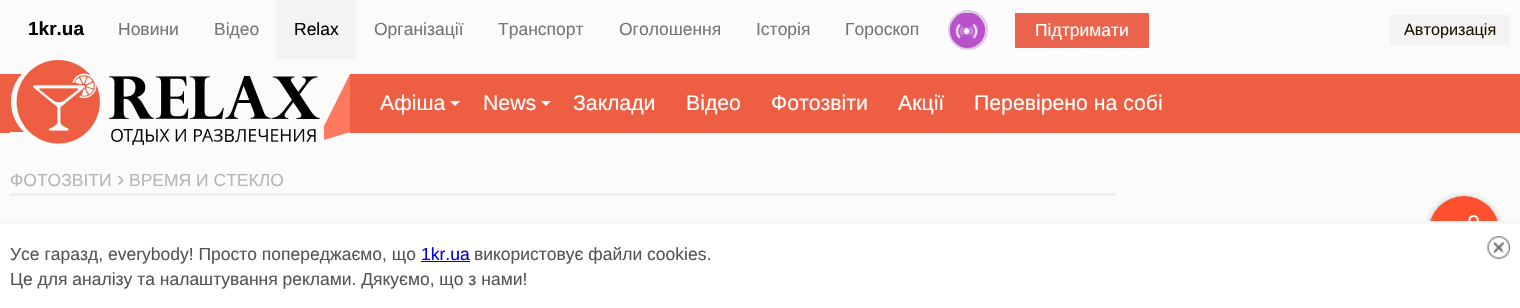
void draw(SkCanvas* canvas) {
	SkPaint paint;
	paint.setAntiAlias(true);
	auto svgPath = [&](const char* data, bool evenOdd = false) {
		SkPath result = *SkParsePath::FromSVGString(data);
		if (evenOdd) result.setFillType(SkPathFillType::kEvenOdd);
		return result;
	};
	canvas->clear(0xfffbfbfb);
	SkFont f1(fontMgr->matchFamilyStyle("Liberation Sans", SkFontStyle::Bold()), 19);
	f1.setSubpixel(true);
	paint.setColor(0xff000000);
	canvas->drawString("1kr.ua", 28, 35, f1, paint);
	SkFont f2(fontMgr->matchFamilyStyle("Liberation Sans", SkFontStyle::Normal()), 17.5);
	f2.setSubpixel(true);
	paint.setColor(0xff757575);
	canvas->drawString("Новини", 118, 35, f2, paint);
	canvas->drawString("Відео", 214, 35, f2, paint);
	paint.setColor(0xfff3f3f3);
	canvas->drawRect(SkRect::MakeXYWH(276, 0, 80, 59), paint);
	paint.setColor(0xff000000);
	canvas->drawString("Relax", 294, 35, f2, paint);
	paint.setColor(0xff757575);
	canvas->drawString("Організації", 374, 35, f2, paint);
	canvas->drawString("Транспорт", 498, 35, f2, paint);
	canvas->drawString("Оголошення", 619, 35, f2, paint);
	canvas->drawString("Історія", 756, 35, f2, paint);
	canvas->drawString("Гороскоп", 845, 35, f2, paint);
	paint.setStroke(true);
	paint.setStrokeWidth(3);
	paint.setColor(0xffe4c8e9);
	canvas->drawCircle(968, 30, 18.5, paint);
	paint.setStroke(false);
	paint.setColor(0xe6ad50be);
	canvas->drawCircle(967.5, 30.5, 17.5, paint);
	canvas->drawImageRect(SkImages::DeferredFromEncodedData(SkData::MakeFromFileName("img1.png")), SkRect::MakeXYWH(950, 13, 35, 35), SkSamplingOptions());
	paint.setColor(0xffea634d);
	canvas->drawRect(SkRect::MakeXYWH(1015, 13, 134, 35), paint);
	paint.setColor(0xffffffff);
	canvas->drawString("Підтримати", 1035, 36, f2, paint);
	paint.setColor(0xfff3f3f3);
	canvas->drawRect(SkRect::MakeXYWH(1390, 15, 120, 30), paint);
	SkFont f3(fontMgr->matchFamilyStyle("Liberation Sans", SkFontStyle::Normal()), 16.25);
	f3.setSubpixel(true);
	paint.setColor(0xff1e1600);
	canvas->drawString("Авторизація", 1404, 35, f3, paint);
	paint.setColor(0xffed5e42);
	canvas->drawRect(SkRect::MakeXYWH(0, 74, 1520, 59), paint);
	paint.setColor(0xfffbfbfb);
	canvas->drawRect(SkRect::MakeXYWH(10, 74, 340, 59), paint);
	paint.setColor(0xffed5e42);
	canvas->drawPath(svgPath("M11 102C11 91 15 81 22 74H10V132H24C16 124 11 114 11 102Z"), paint);
	canvas->drawImageRect(SkImages::DeferredFromEncodedData(SkData::MakeFromFileName("img2.png")), SkRect::MakeXYWH(16, 60, 304, 85), SkSamplingOptions());
	paint.setColor(0xfffc785e);
	canvas->drawPath(svgPath("M350 132V74L324 126V140Z"), paint);
	SkFont f4(fontMgr->matchFamilyStyle("Liberation Sans", SkFontStyle::Normal()), 21.25);
	f4.setSubpixel(true);
	paint.setColor(0xffffffff);
	canvas->drawString("Афіша", 380, 110, f4, paint);
	canvas->drawPath(svgPath("M450 101H460L455 106Z"), paint);
	canvas->drawString("News", 483, 110, f4, paint);
	canvas->drawPath(svgPath("M541 101H551L546 106Z"), paint);
	canvas->drawString("Заклади", 573, 110, f4, paint);
	canvas->drawString("Відео", 686, 110, f4, paint);
	canvas->drawString("Фотозвіти", 771, 110, f4, paint);
	canvas->drawString("Акції", 898, 110, f4, paint);
	canvas->drawString("Перевірено на собі", 974, 110, f4, paint);
	paint.setColor(0xffeeeeee);
	canvas->drawRect(SkRect::MakeXYWH(10, 193, 1106, 3), paint);
	paint.setColor(0xffb6b6b6);
	canvas->drawString("ФОТОЗВІТИ", 10, 186, f2, paint);
	SkFont f5(fontMgr->matchFamilyStyle("Liberation Sans", SkFontStyle::Normal()), 22);
	f5.setSubpixel(true);
	canvas->drawString("›", 117, 186, f5, paint);
	canvas->drawString("ВРЕМЯ И СТЕКЛО", 129, 186, f2, paint);
	paint.setColor(0x47000000);
	paint.setMaskFilter(SkMaskFilter::MakeBlur(kNormal_SkBlurStyle, 5));
	canvas->drawRoundRect(SkRect::MakeXYWH(1429, 201, 70, 70), 35, 35, paint);
	paint.setMaskFilter(nullptr);
	paint.setColor(0x24000000);
	paint.setMaskFilter(SkMaskFilter::MakeBlur(kNormal_SkBlurStyle, 2.5));
	canvas->drawRoundRect(SkRect::MakeXYWH(1429, 196, 70, 70), 35, 35, paint);
	paint.setMaskFilter(nullptr);
	paint.setColor(0xffff502f);
	canvas->drawCircle(1464, 231, 35, paint);
	canvas->drawImageRect(SkImages::DeferredFromEncodedData(SkData::MakeFromFileName("img3.png")), SkRect::MakeXYWH(1468, 215, 11, 6), SkSamplingOptions());
	paint.setColor(0xffffffff);
	canvas->drawRect(SkRect::MakeXYWH(0, 224, 1520, 84), paint);
	paint.setColor(0xfff5f5f5);
	canvas->drawRect(SkRect::MakeXYWH(0, 221, 1520, 3), paint);
	paint.setColor(0xff545454);
	canvas->drawString("Усе гаразд, everybody! Просто попереджаємо, що", 10, 260, f2, paint);
	paint.setColor(0xff0000ee);
	canvas->drawString("1kr.ua", 421, 260, f2, paint);
	canvas->drawRect(SkRect::MakeXYWH(421, 261, 49, 1), paint);
	paint.setColor(0xff545454);
	canvas->drawString("використовує файли cookies.", 474, 260, f2, paint);
	canvas->drawString("Це для аналізу та налаштування реклами. Дякуємо, що з нами!", 10, 285, f2, paint);
	canvas->drawImageRect(SkImages::DeferredFromEncodedData(SkData::MakeFromFileName("img4.png")), SkRect::MakeXYWH(1487, 236, 23, 23), SkSamplingOptions());
}
